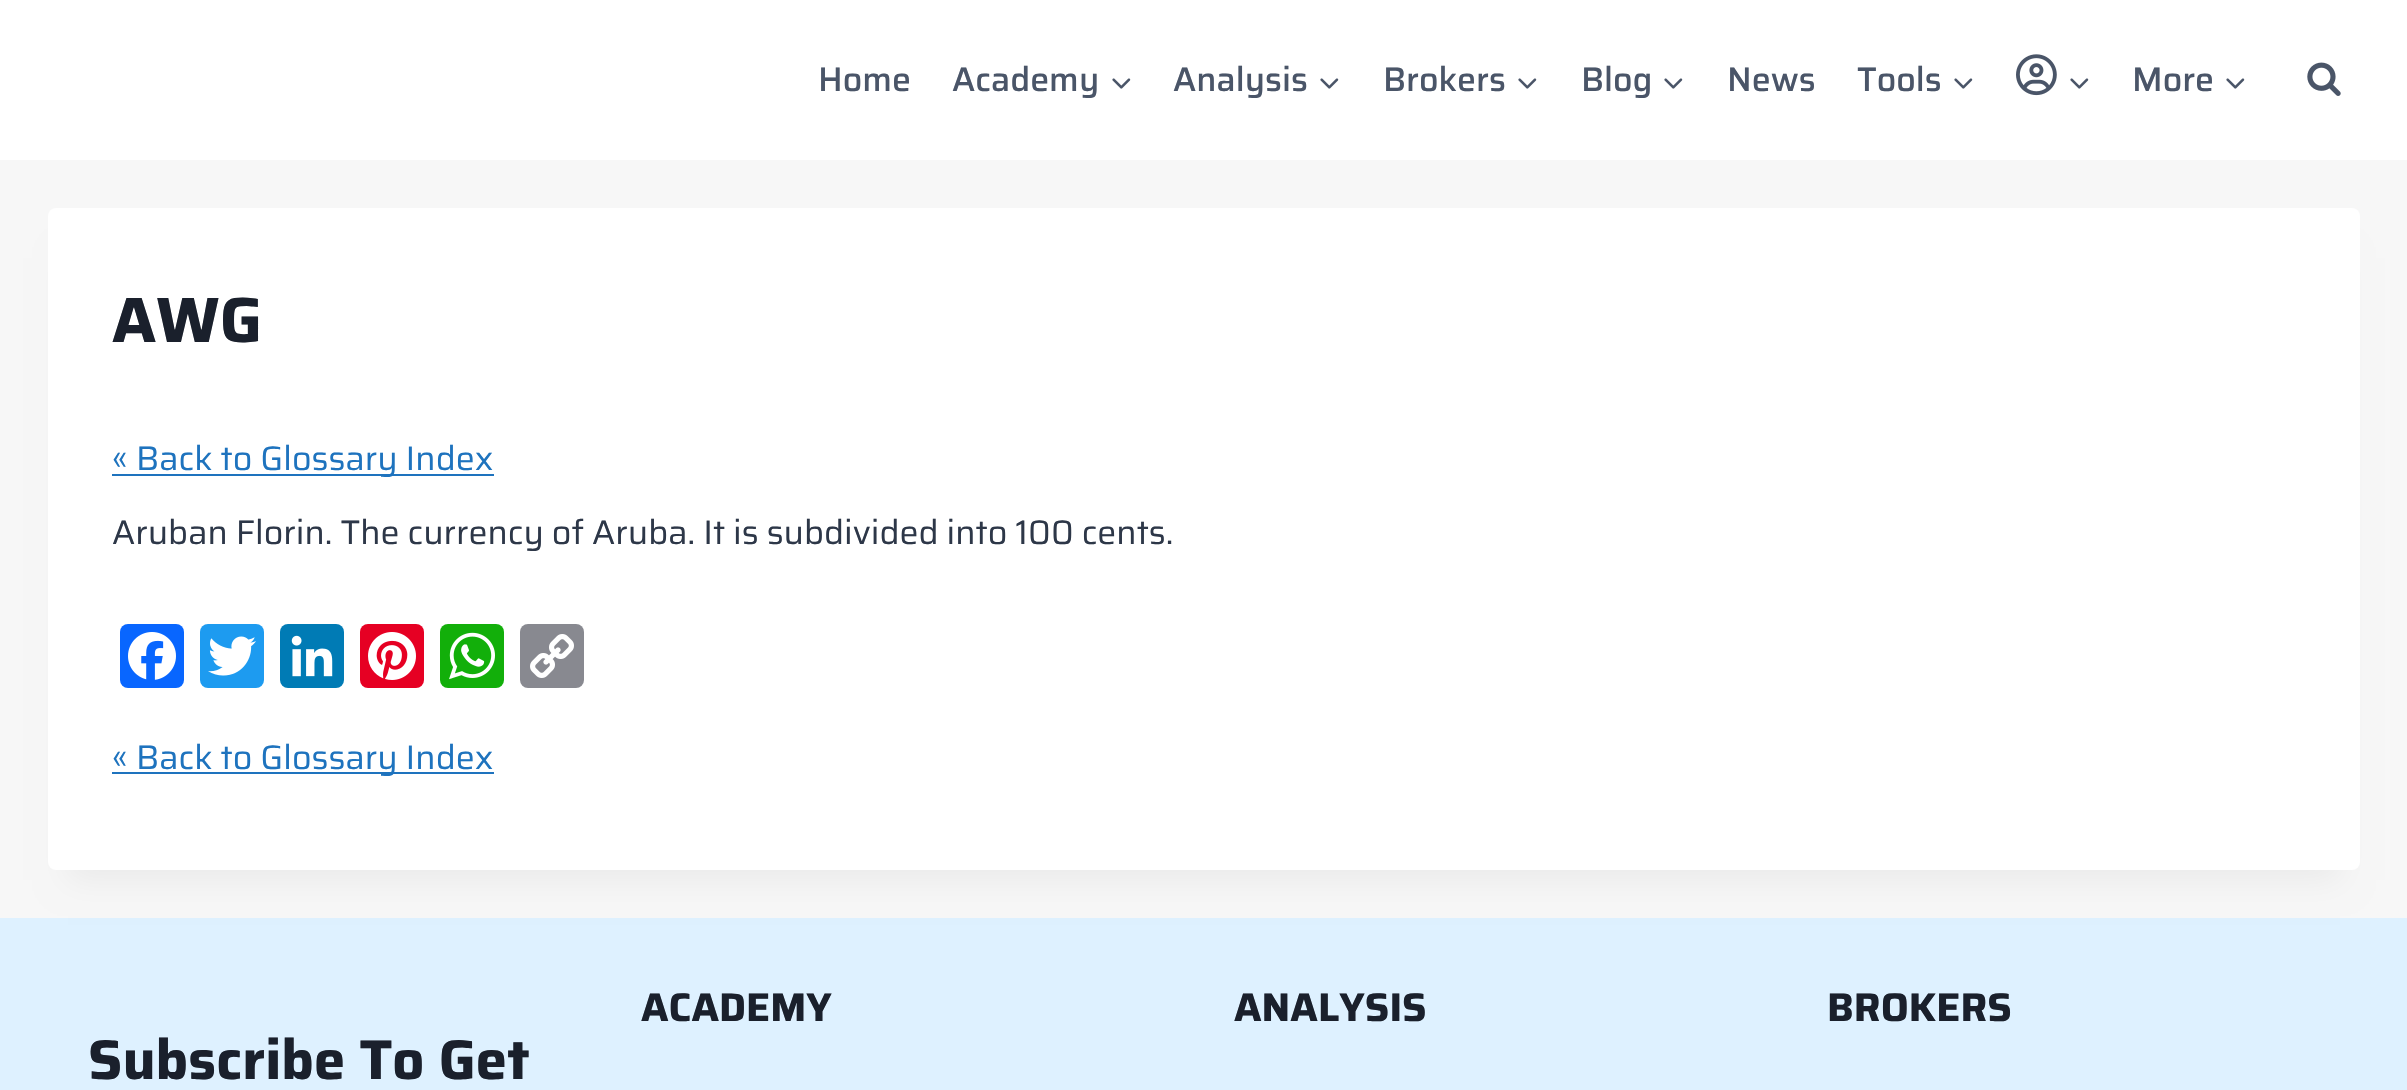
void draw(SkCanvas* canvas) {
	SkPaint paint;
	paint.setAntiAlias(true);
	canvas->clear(0xfff7f7f7);
	paint.setColor(0xffffffff);
	canvas->drawRect(SkRect::MakeXYWH(0, 0, 2407, 160), paint);
	SkFont f1(fontMgr->matchFamilyStyle("Saira", SkFontStyle(500, SkFontStyle::kNormal_Width, SkFontStyle::kUpright_Slant)), 34);
	f1.setSubpixel(true);
	paint.setColor(0xff4a5568);
	canvas->drawString("Home", 818, 91, f1, paint);
	canvas->drawString("Academy", 952, 91, f1, paint);
	canvas->drawImageRect(SkImages::DeferredFromEncodedData(SkData::MakeFromFileName("img1.png")), SkRect::MakeXYWH(1112, 78, 19, 11), SkSamplingOptions());
	canvas->drawString("Analysis", 1173, 91, f1, paint);
	canvas->drawImageRect(SkImages::DeferredFromEncodedData(SkData::MakeFromFileName("img1.png")), SkRect::MakeXYWH(1320, 78, 19, 11), SkSamplingOptions());
	canvas->drawString("Brokers", 1383, 91, f1, paint);
	canvas->drawImageRect(SkImages::DeferredFromEncodedData(SkData::MakeFromFileName("img1.png")), SkRect::MakeXYWH(1518, 78, 19, 11), SkSamplingOptions());
	canvas->drawString("Blog", 1581, 91, f1, paint);
	canvas->drawImageRect(SkImages::DeferredFromEncodedData(SkData::MakeFromFileName("img1.png")), SkRect::MakeXYWH(1664, 78, 19, 11), SkSamplingOptions());
	canvas->drawString("News", 1727, 91, f1, paint);
	canvas->drawString("Tools", 1857, 91, f1, paint);
	canvas->drawImageRect(SkImages::DeferredFromEncodedData(SkData::MakeFromFileName("img1.png")), SkRect::MakeXYWH(1954, 78, 19, 11), SkSamplingOptions());
	canvas->drawImageRect(SkImages::DeferredFromEncodedData(SkData::MakeFromFileName("img2.png")), SkRect::MakeXYWH(2016, 54, 41, 42), SkSamplingOptions());
	canvas->drawImageRect(SkImages::DeferredFromEncodedData(SkData::MakeFromFileName("img1.png")), SkRect::MakeXYWH(2070, 78, 19, 11), SkSamplingOptions());
	canvas->drawString("More", 2132, 91, f1, paint);
	canvas->drawImageRect(SkImages::DeferredFromEncodedData(SkData::MakeFromFileName("img1.png")), SkRect::MakeXYWH(2226, 78, 19, 11), SkSamplingOptions());
	canvas->drawImageRect(SkImages::DeferredFromEncodedData(SkData::MakeFromFileName("img3.png")), SkRect::MakeXYWH(2307, 62, 34, 34), SkSamplingOptions());
	paint.setColor(0xffdef1ff);
	canvas->drawRect(SkRect::MakeXYWH(0, 918, 2407, 172), paint);
	paint.setColor(0x0d000000);
	paint.setMaskFilter(SkMaskFilter::MakeBlur(kNormal_SkBlurStyle, 15));
	canvas->drawRect(SkRect::MakeXYWH(68, 258, 2272, 622), paint);
	paint.setMaskFilter(nullptr);
	paint.setColor(0xffffffff);
	canvas->drawRoundRect(SkRect::MakeXYWH(48, 208, 2312, 662), 8, 8, paint);
	SkFont f2(fontMgr->matchFamilyStyle("Saira", SkFontStyle::Bold()), 64);
	f2.setSubpixel(true);
	paint.setColor(0xff1a202c);
	canvas->drawString("AWG", 112, 342, f2, paint);
	paint.setColor(0xff1e73be);
	canvas->drawRect(SkRect::MakeXYWH(112, 474, 382, 2), paint);
	SkFont f3(fontMgr->matchFamilyStyle("Saira", SkFontStyle::Normal()), 34);
	f3.setSubpixel(true);
	canvas->drawString("« Back to Glossary Index", 112, 470, f3, paint);
	paint.setColor(0xff2d3748);
	canvas->drawString("Aruban Florin. The currency of Aruba. It is subdivided into 100 cents.", 112, 544, f3, paint);
	paint.setColor(0xff0866ff);
	canvas->drawRoundRect(SkRect::MakeXYWH(120, 624, 64, 64), 8, 8, paint);
	canvas->drawImageRect(SkImages::DeferredFromEncodedData(SkData::MakeFromFileName("img4.png")), SkRect::MakeXYWH(128, 632, 48, 48), SkSamplingOptions());
	paint.setColor(0xff1d9bf0);
	canvas->drawRoundRect(SkRect::MakeXYWH(200, 624, 64, 64), 8, 8, paint);
	canvas->drawImageRect(SkImages::DeferredFromEncodedData(SkData::MakeFromFileName("img5.png")), SkRect::MakeXYWH(208, 636, 48, 40), SkSamplingOptions());
	paint.setColor(0xff007bb5);
	canvas->drawRoundRect(SkRect::MakeXYWH(280, 624, 64, 64), 8, 8, paint);
	canvas->drawImageRect(SkImages::DeferredFromEncodedData(SkData::MakeFromFileName("img6.png")), SkRect::MakeXYWH(291, 635, 42, 42), SkSamplingOptions());
	paint.setColor(0xffe60023);
	canvas->drawRoundRect(SkRect::MakeXYWH(360, 624, 64, 64), 8, 8, paint);
	canvas->drawImageRect(SkImages::DeferredFromEncodedData(SkData::MakeFromFileName("img7.png")), SkRect::MakeXYWH(368, 632, 48, 48), SkSamplingOptions());
	paint.setColor(0xff12af0a);
	canvas->drawRoundRect(SkRect::MakeXYWH(440, 624, 64, 64), 8, 8, paint);
	canvas->drawImageRect(SkImages::DeferredFromEncodedData(SkData::MakeFromFileName("img8.png")), SkRect::MakeXYWH(449, 632, 46, 48), SkSamplingOptions());
	paint.setColor(0xff888990);
	canvas->drawRoundRect(SkRect::MakeXYWH(520, 624, 64, 64), 8, 8, paint);
	canvas->drawImageRect(SkImages::DeferredFromEncodedData(SkData::MakeFromFileName("img9.png")), SkRect::MakeXYWH(530, 634, 44, 44), SkSamplingOptions());
	paint.setColor(0xff1e73be);
	canvas->drawRect(SkRect::MakeXYWH(112, 772, 382, 2), paint);
	canvas->drawString("« Back to Glossary Index", 112, 769, f3, paint);
	SkFont f4(fontMgr->matchFamilyStyle("Saira", SkFontStyle::Bold()), 40);
	f4.setSubpixel(true);
	paint.setColor(0xff1a202c);
	canvas->drawString("ACADEMY", 641, 1021, f4, paint);
	canvas->drawString("ANALYSIS", 1234, 1021, f4, paint);
	canvas->drawString("BROKERS", 1827, 1021, f4, paint);
	SkFont f5(fontMgr->matchFamilyStyle("Saira", SkFontStyle::Bold()), 56);
	f5.setSubpixel(true);
	canvas->drawString("Subscribe To Get", 88, 1079, f5, paint);
}
